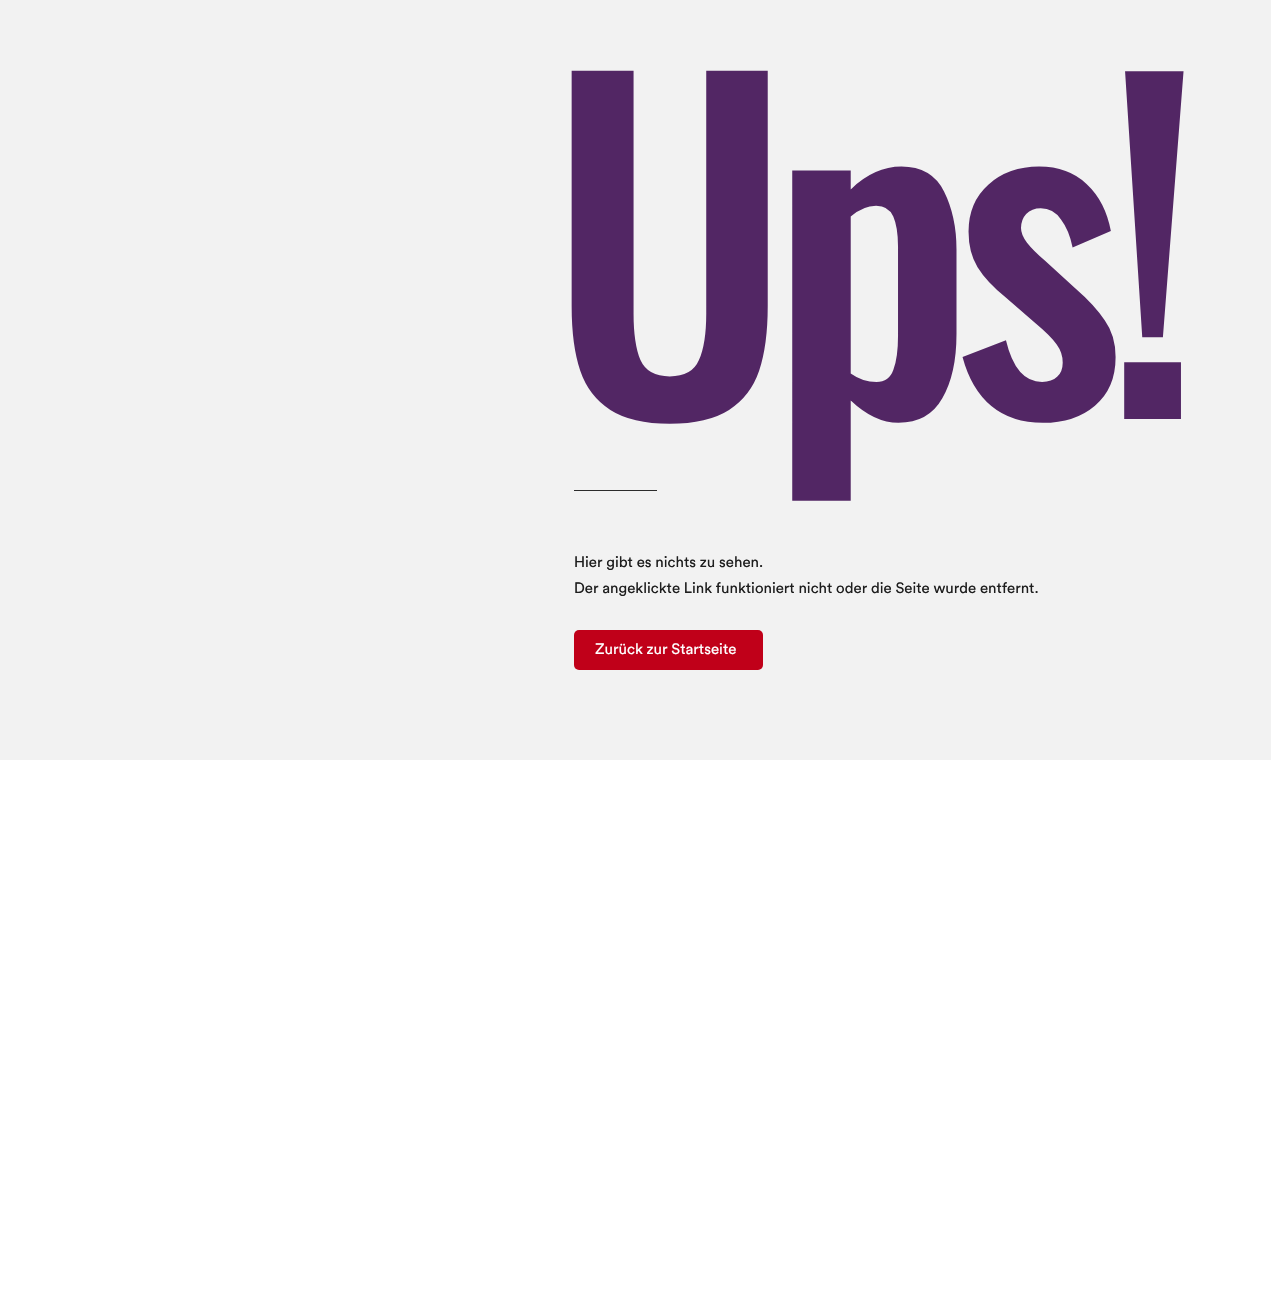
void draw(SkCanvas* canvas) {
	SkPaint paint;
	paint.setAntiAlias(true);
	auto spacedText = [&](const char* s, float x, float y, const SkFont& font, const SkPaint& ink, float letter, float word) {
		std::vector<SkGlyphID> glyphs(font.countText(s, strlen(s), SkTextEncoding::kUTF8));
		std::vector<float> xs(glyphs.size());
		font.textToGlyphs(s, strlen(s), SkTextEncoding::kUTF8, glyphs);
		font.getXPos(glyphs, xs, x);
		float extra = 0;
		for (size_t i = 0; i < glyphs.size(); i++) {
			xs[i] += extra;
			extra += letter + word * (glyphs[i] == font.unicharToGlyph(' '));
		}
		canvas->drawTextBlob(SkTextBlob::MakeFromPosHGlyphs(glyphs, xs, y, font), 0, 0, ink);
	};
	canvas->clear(0xffffffff);
	paint.setColor(0xfff2f2f2);
	canvas->drawRect(SkRect::MakeXYWH(0, 0, 1271, 760), paint);
	SkFont f1(fontMgr->matchFamilyStyle("Oswald", SkFontStyle(500, SkFontStyle::kNormal_Width, SkFontStyle::kUpright_Slant)), 430);
	f1.setSubpixel(true);
	paint.setColor(0xff522664);
	spacedText("Ups!", 548, 419, f1, paint, -21.5, 0);
	paint.setColor(0xff2c2c2c);
	canvas->drawRect(SkRect::MakeXYWH(574, 490, 83, 1), paint);
	SkFont f2(fontMgr->matchFamilyStyle("Circular", SkFontStyle::Normal()), 15);
	f2.setSubpixel(true);
	paint.setColor(0xff1e1e1e);
	canvas->drawString("Hier gibt es nichts zu sehen.", 574, 567, f2, paint);
	canvas->drawString("Der angeklickte Link funktioniert nicht oder die Seite wurde entfernt.", 574, 593, f2, paint);
	paint.setColor(0xffc00019);
	canvas->drawRoundRect(SkRect::MakeXYWH(574, 630, 189, 40), 5, 5, paint);
	paint.setColor(0xffffffff);
	canvas->drawString("Zurück zur Startseite", 595, 654, f2, paint);
}
